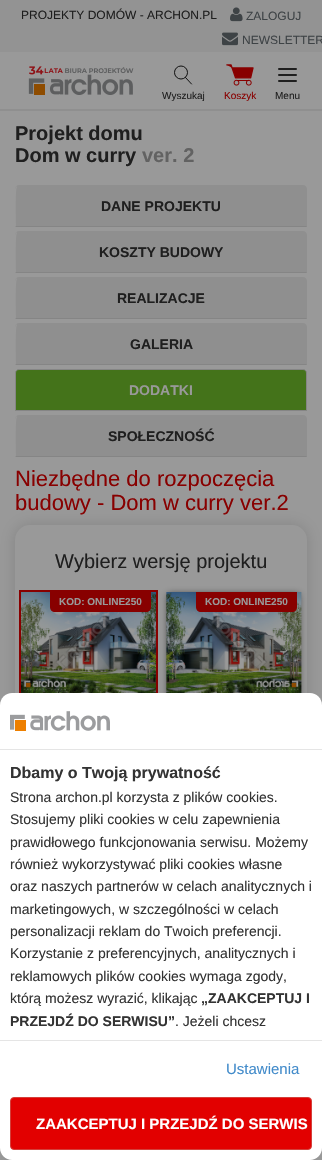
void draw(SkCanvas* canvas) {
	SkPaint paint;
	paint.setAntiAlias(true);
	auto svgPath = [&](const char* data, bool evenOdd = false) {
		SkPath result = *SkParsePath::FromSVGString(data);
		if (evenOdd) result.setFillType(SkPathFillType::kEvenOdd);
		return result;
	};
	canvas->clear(0xff999999);
	paint.setColor(0xff939393);
	canvas->drawRect(SkRect::MakeXYWH(0, 0, 322, 52), paint);
	SkFont f1(fontMgr->matchFamilyStyle("Liberation Sans", SkFontStyle::Normal()), 12);
	f1.setSubpixel(true);
	paint.setColor(0xff1f1f1f);
	canvas->drawString("PROJEKTY DOMÓW - ARCHON.PL", 21, 19, f1, paint);
	canvas->drawImageRect(SkImages::DeferredFromEncodedData(SkData::MakeFromFileName("img1.png")), SkRect::MakeXYWH(230, 7, 13, 15), SkSamplingOptions());
	paint.setColor(0xff3e4346);
	canvas->drawString("ZALOGUJ", 246, 20, f1, paint);
	canvas->drawImageRect(SkImages::DeferredFromEncodedData(SkData::MakeFromFileName("img2.png")), SkRect::MakeXYWH(222, 32, 16, 14), SkSamplingOptions());
	canvas->drawString("NEWSLETTER", 242, 44, f1, paint);
	paint.setColor(0xff8f8f8f);
	canvas->drawRect(SkRect::MakeXYWH(0, 109, 322, 2), paint);
	canvas->drawImageRect(SkImages::DeferredFromEncodedData(SkData::MakeFromFileName("img3.png")), SkRect::MakeXYWH(28, 66, 106, 29), SkSamplingOptions());
	paint.setStroke(true);
	paint.setStrokeWidth(0.9);
	paint.setColor(0xff000000);
	canvas->drawCircle(181, 72.5, 6.5, paint);
	paint.setStrokeCap(SkPaint::kRound_Cap);
	paint.setStrokeJoin(SkPaint::kRound_Join);
	canvas->drawPath(svgPath("M185.5 77.5L191.5 84"), paint);
	SkFont f2(fontMgr->matchFamilyStyle("Liberation Sans", SkFontStyle::Normal()), 10);
	f2.setSubpixel(true);
	paint.setStroke(false);
	paint.setColor(0xff1f1f1f);
	canvas->drawString("Wyszukaj", 162, 99, f2, paint);
	canvas->drawImageRect(SkImages::DeferredFromEncodedData(SkData::MakeFromFileName("img4.png")), SkRect::MakeXYWH(226, 64, 28, 22), SkSamplingOptions());
	paint.setColor(0xff880000);
	canvas->drawString("Koszyk", 224, 99, f2, paint);
	canvas->drawImageRect(SkImages::DeferredFromEncodedData(SkData::MakeFromFileName("img5.png")), SkRect::MakeXYWH(278, 68, 19, 14), SkSamplingOptions());
	paint.setColor(0xff1f1f1f);
	canvas->drawString("Menu", 275, 99, f2, paint);
	SkFont f3(fontMgr->matchFamilyStyle("Liberation Sans", SkFontStyle::Bold()), 20);
	f3.setSubpixel(true);
	canvas->drawString("Projekt domu", 15, 140, f3, paint);
	canvas->drawString("Dom w curry", 15, 162, f3, paint);
	paint.setColor(0xff626262);
	canvas->drawString("ver. 2", 142, 162, f3, paint);
	paint.setColor(0xff8f8f8f);
	canvas->drawPath(svgPath("M19 185H303C305 185 307 187 307 189V227H15V189C15 187 17 185 19 185Z"), paint);
	paint.setColor(0xff858585);
	canvas->drawPath(svgPath("M307 227L306 226H16L15 227Z"), paint);
	paint.setColor(0xff999999);
	canvas->drawPath(svgPath("M15 227L16 226C16 221 15 189 17 187L16 186L15 189Z"), paint);
	SkFont f4(fontMgr->matchFamilyStyle("Liberation Sans", SkFontStyle::Bold()), 14);
	f4.setSubpixel(true);
	paint.setColor(0xff1f1f1f);
	canvas->drawString("DANE PROJEKTU", 101, 211, f4, paint);
	paint.setColor(0xff8f8f8f);
	canvas->drawPath(svgPath("M19 231H303C305 231 307 233 307 235V273H15V235C15 233 17 231 19 231Z"), paint);
	paint.setColor(0xff858585);
	canvas->drawPath(svgPath("M307 273L306 272H16L15 273Z"), paint);
	paint.setColor(0xff999999);
	canvas->drawPath(svgPath("M15 273L16 272C16 267 15 235 17 233L16 232L15 235Z"), paint);
	paint.setColor(0xff1f1f1f);
	canvas->drawString("KOSZTY BUDOWY", 99, 257, f4, paint);
	paint.setColor(0xff8f8f8f);
	canvas->drawPath(svgPath("M19 277H303C305 277 307 279 307 281V319H15V281C15 279 17 277 19 277Z"), paint);
	paint.setColor(0xff858585);
	canvas->drawPath(svgPath("M307 319L306 318H16L15 319Z"), paint);
	paint.setColor(0xff999999);
	canvas->drawPath(svgPath("M15 319L16 318C16 313 15 281 17 279L16 278L15 281Z"), paint);
	paint.setColor(0xff1f1f1f);
	canvas->drawString("REALIZACJE", 117, 303, f4, paint);
	paint.setColor(0xff8f8f8f);
	canvas->drawPath(svgPath("M19 323H303C305 323 307 325 307 327V365H15V327C15 325 17 323 19 323Z"), paint);
	paint.setColor(0xff858585);
	canvas->drawPath(svgPath("M307 365L306 364H16L15 365Z"), paint);
	paint.setColor(0xff999999);
	canvas->drawPath(svgPath("M15 365L16 364C16 359 15 327 17 325L16 324L15 327Z"), paint);
	paint.setColor(0xff1f1f1f);
	canvas->drawString("GALERIA", 130, 349, f4, paint);
	paint.setColor(0xff44731a);
	canvas->drawPath(svgPath("M19 369.5H303C305 369.5 306.5 371 306.5 373V410.5H15.5V373C15.5 371 17 369.5 19 369.5Z"), paint);
	paint.setStroke(true);
	paint.setStrokeWidth(1);
	paint.setStrokeCap(SkPaint::kButt_Cap);
	paint.setStrokeJoin(SkPaint::kMiter_Join);
	paint.setColor(0xff858585);
	canvas->drawPath(svgPath("M19 369.5H303C305 369.5 306.5 371 306.5 373V410.5H15.5V373C15.5 371 17 369.5 19 369.5Z"), paint);
	paint.setStroke(false);
	paint.setColor(0xff999999);
	canvas->drawString("DODATKI", 129, 395, f4, paint);
	paint.setColor(0xff8f8f8f);
	canvas->drawPath(svgPath("M19 415H303C305 415 307 417 307 419V457H15V419C15 417 17 415 19 415Z"), paint);
	paint.setColor(0xff858585);
	canvas->drawPath(svgPath("M307 457L306 456H16L15 457Z"), paint);
	paint.setColor(0xff999999);
	canvas->drawPath(svgPath("M15 457L16 456C16 451 15 419 17 417L16 416L15 419Z"), paint);
	paint.setColor(0xff1f1f1f);
	canvas->drawString("SPOŁECZNOŚĆ", 108, 441, f4, paint);
	SkFont f5(fontMgr->matchFamilyStyle("Liberation Sans", SkFontStyle::Normal()), 22);
	f5.setSubpixel(true);
	paint.setColor(0xff880000);
	canvas->drawString("Niezbędne do rozpoczęcia", 15, 486, f5, paint);
	canvas->drawString("budowy - Dom w curry ver.2", 15, 510, f5, paint);
	paint.setColor(0xff838383);
	paint.setMaskFilter(SkMaskFilter::MakeBlur(kNormal_SkBlurStyle, 7.5));
	canvas->drawRoundRect(SkRect::MakeXYWH(15, 525, 292, 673), 15, 15, paint);
	paint.setMaskFilter(nullptr);
	paint.setColor(0xff999999);
	canvas->drawRoundRect(SkRect::MakeXYWH(15, 525, 292, 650), 15, 15, paint);
	SkFont f6(fontMgr->matchFamilyStyle("Liberation Sans", SkFontStyle::Normal()), 20);
	f6.setSubpixel(true);
	paint.setColor(0xff1f1f1f);
	canvas->drawString("Wybierz wersję projektu", 55, 568, f6, paint);
	paint.setStroke(true);
	paint.setStrokeWidth(2);
	paint.setColor(0xff880000);
	canvas->drawRect(SkRect::MakeXYWH(20, 591, 137, 183), paint);
	canvas->drawImageRect(SkImages::DeferredFromEncodedData(SkData::MakeFromFileName("img6.png")), SkRect::MakeXYWH(21, 592, 135, 101), SkSamplingOptions());
	paint.setStroke(false);
	canvas->drawPath(svgPath("M50 592H151V607C151 610 149 612 146 612H55C52 612 50 610 50 607Z"), paint);
	SkFont f7(fontMgr->matchFamilyStyle("Liberation Sans", SkFontStyle::Bold()), 10);
	f7.setSubpixel(true);
	paint.setColor(0xff999999);
	canvas->drawString("KOD: ONLINE250", 59, 605, f7, paint);
	paint.setColor(0xff333333);
	paint.setMaskFilter(SkMaskFilter::MakeBlur(kNormal_SkBlurStyle, 3.5));
	canvas->drawRect(SkRect::MakeXYWH(168, 594, 131, 177), paint);
	paint.setMaskFilter(nullptr);
	canvas->drawImageRect(SkImages::DeferredFromEncodedData(SkData::MakeFromFileName("img7.png")), SkRect::MakeXYWH(166, 592, 136, 101), SkSamplingOptions());
	paint.setColor(0xff880000);
	canvas->drawPath(svgPath("M196 592H297V607C297 610 295 612 292 612H201C198 612 196 610 196 607Z"), paint);
	paint.setColor(0xff999999);
	canvas->drawString("KOD: ONLINE250", 205, 605, f7, paint);
	paint.setColor(0xff838383);
	paint.setMaskFilter(SkMaskFilter::MakeBlur(kNormal_SkBlurStyle, 7.5));
	canvas->drawRoundRect(SkRect::MakeXYWH(16, 1086, 290, 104), 7, 7, paint);
	paint.setMaskFilter(nullptr);
	paint.setColor(0xffffffff);
	canvas->drawPath(svgPath("M12 693H310C316.5 693 322 698.5 322 705V750H0V705C0 698.5 5.5 693 12 693Z"), paint);
	paint.setColor(0xffe5e5e5);
	canvas->drawRect(SkRect::MakeXYWH(0, 749, 322, 1), paint);
	canvas->drawImageRect(SkImages::DeferredFromEncodedData(SkData::MakeFromFileName("img8.png")), SkRect::MakeXYWH(10, 711, 100, 20), SkSamplingOptions());
	paint.setColor(0xffffffff);
	canvas->drawRect(SkRect::MakeXYWH(0, 750, 322, 290), paint);
	SkFont f8(fontMgr->matchFamilyStyle("Liberation Sans", SkFontStyle::Bold()), 16);
	f8.setSubpixel(true);
	paint.setColor(0xff333333);
	canvas->drawString("Dbamy o Twoją prywatność", 10, 778, f8, paint);
	SkFont f9(fontMgr->matchFamilyStyle("Liberation Sans", SkFontStyle::Normal()), 14);
	f9.setSubpixel(true);
	canvas->drawString("Strona archon.pl korzysta z plików cookies.", 10, 802, f9, paint);
	canvas->drawString("Stosujemy pliki cookies w celu zapewnienia", 10, 824, f9, paint);
	canvas->drawString("prawidłowego funkcjonowania serwisu. Możemy", 10, 847, f9, paint);
	canvas->drawString("również wykorzystywać pliki cookies własne", 10, 869, f9, paint);
	canvas->drawString("oraz naszych partnerów w celach analitycznych i", 10, 891, f9, paint);
	canvas->drawString("marketingowych, w szczególności w celach", 10, 914, f9, paint);
	canvas->drawString("personalizacji reklam do Twoich preferencji.", 10, 936, f9, paint);
	canvas->drawString("Korzystanie z preferencyjnych, analitycznych i", 10, 958, f9, paint);
	canvas->drawString("reklamowych plików cookies wymaga zgody,", 10, 981, f9, paint);
	canvas->drawString("którą możesz wyrazić, klikając", 10, 1003, f9, paint);
	canvas->drawString("„ZAAKCEPTUJ I", 201, 1003, f4, paint);
	canvas->drawString("PRZEJDŹ DO SERWISU”", 10, 1026, f4, paint);
	canvas->drawString(". Jeżeli chcesz", 175, 1026, f9, paint);
	paint.setColor(0xffffffff);
	canvas->drawPath(svgPath("M0 1040H322V1148C322 1154.5 316.5 1160 310 1160H12C5.5 1160 0 1154.5 0 1148Z"), paint);
	paint.setColor(0xffe5e5e5);
	canvas->drawRect(SkRect::MakeXYWH(0, 1040, 322, 1), paint);
	SkFont f10(fontMgr->matchFamilyStyle("Liberation Sans", SkFontStyle::Normal()), 15);
	f10.setSubpixel(true);
	paint.setColor(0xff428bca);
	canvas->drawString("Ustawienia", 226, 1074, f10, paint);
	paint.setColor(0xffe20000);
	canvas->drawRoundRect(SkRect::MakeXYWH(10.5, 1097.5, 301, 52), 3.5, 3.5, paint);
	paint.setStroke(true);
	paint.setStrokeWidth(1);
	paint.setColor(0xffd43f3a);
	canvas->drawRoundRect(SkRect::MakeXYWH(10.5, 1097.5, 301, 52), 3.5, 3.5, paint);
	SkFont f11(fontMgr->matchFamilyStyle("Liberation Sans", SkFontStyle::Bold()), 15);
	f11.setSubpixel(true);
	paint.setStroke(false);
	paint.setColor(0xffffffff);
	canvas->drawString("ZAAKCEPTUJ I PRZEJDŹ DO SERWIS", 36, 1129, f11, paint);
}
